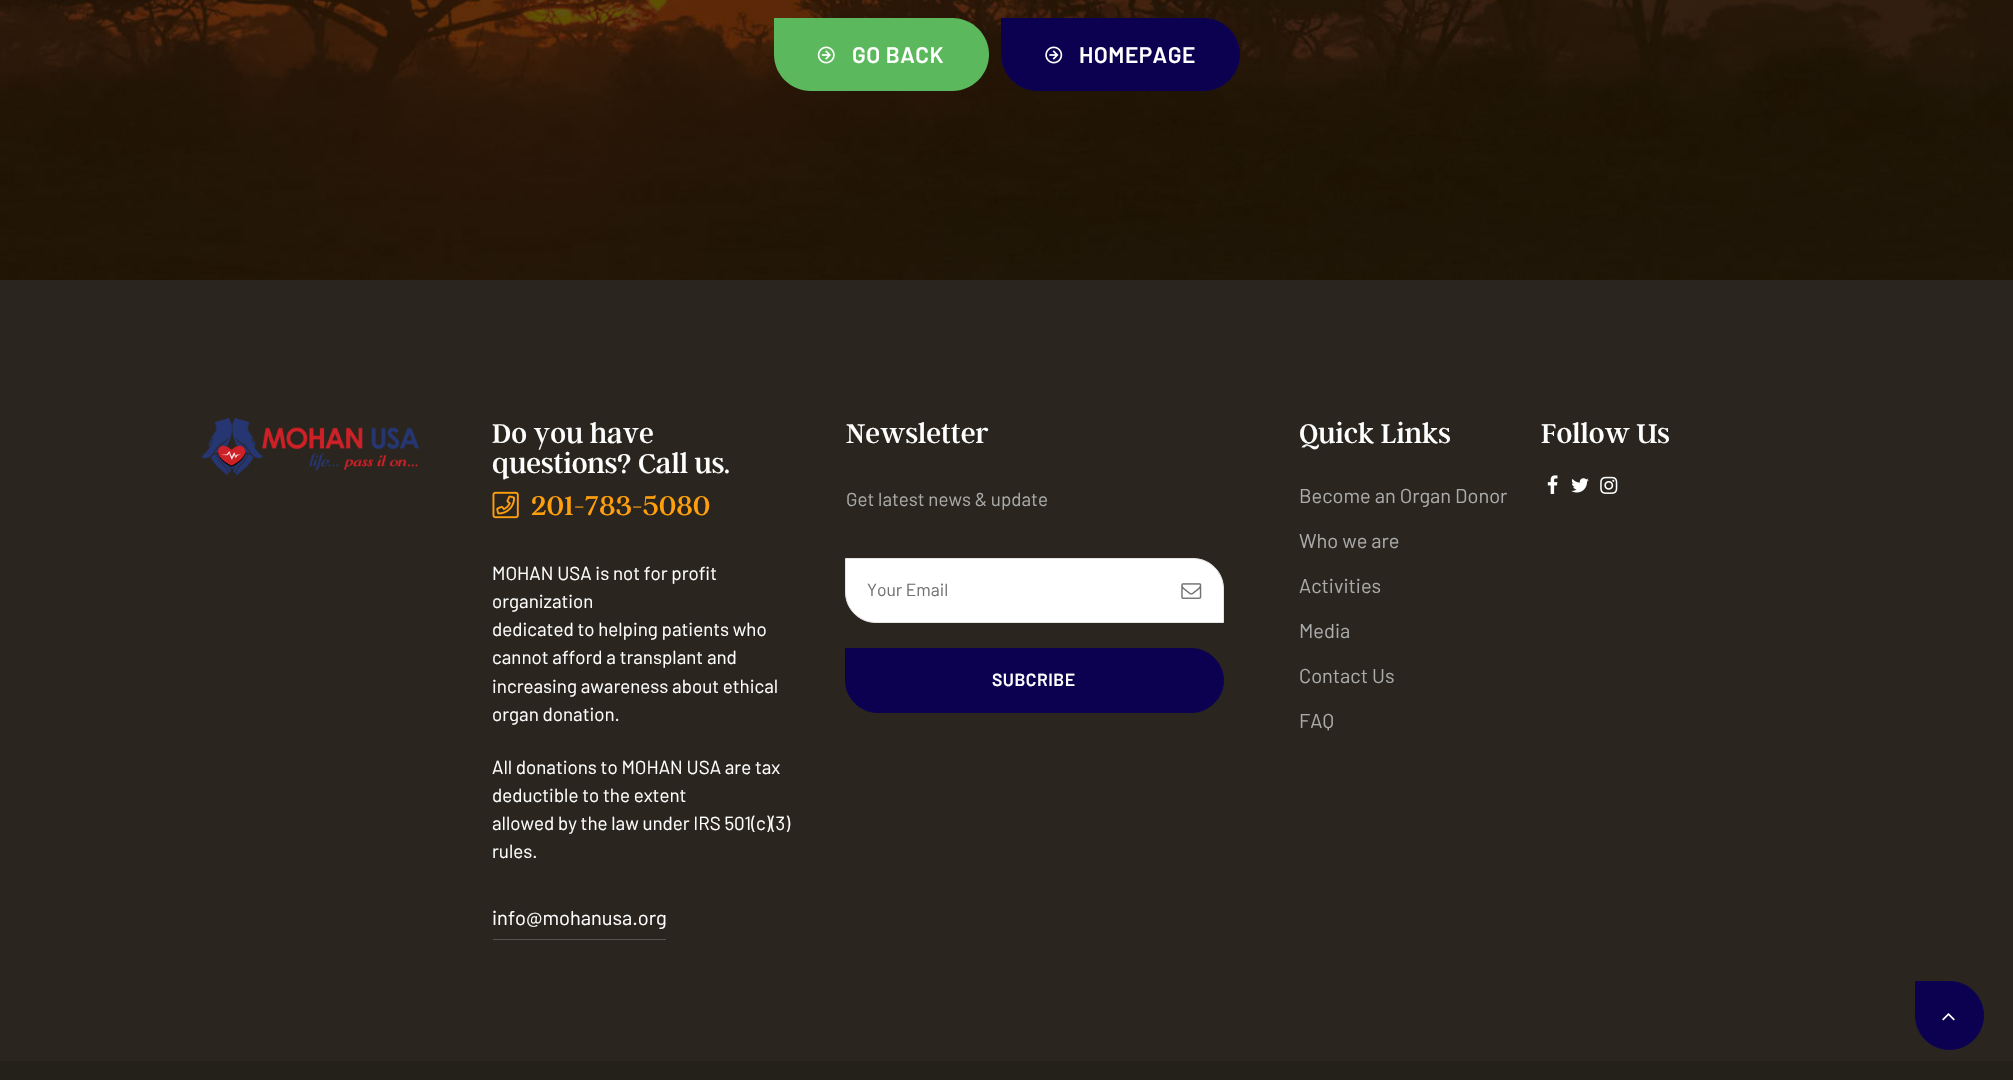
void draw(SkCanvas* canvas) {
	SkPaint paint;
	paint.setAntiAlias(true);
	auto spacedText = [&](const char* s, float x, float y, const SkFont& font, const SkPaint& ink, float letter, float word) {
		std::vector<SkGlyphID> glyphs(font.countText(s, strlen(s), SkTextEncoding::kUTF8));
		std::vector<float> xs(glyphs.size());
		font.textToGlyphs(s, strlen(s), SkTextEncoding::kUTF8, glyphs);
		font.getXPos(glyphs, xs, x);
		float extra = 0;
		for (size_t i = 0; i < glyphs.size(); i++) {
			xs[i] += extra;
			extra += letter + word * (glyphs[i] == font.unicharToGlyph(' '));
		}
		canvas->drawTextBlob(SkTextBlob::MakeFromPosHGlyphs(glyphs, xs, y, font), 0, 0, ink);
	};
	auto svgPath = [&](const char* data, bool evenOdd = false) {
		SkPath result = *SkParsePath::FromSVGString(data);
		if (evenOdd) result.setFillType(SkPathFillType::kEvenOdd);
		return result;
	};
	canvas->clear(0xffffffff);
	canvas->drawImageRect(SkImages::DeferredFromEncodedData(SkData::MakeFromFileName("img1.png")), SkRect::MakeXYWH(0, 0, 2013, 280), SkSamplingOptions());
	paint.setColor(0xff5cb85c);
	canvas->drawPath(svgPath("M774 18H952.5C972.5 18 989 34.5 989 54.5C989 74.5 972.5 91 952.5 91H810.5C790.5 91 774 74.5 774 54.5Z"), paint);
	canvas->drawImageRect(SkImages::DeferredFromEncodedData(SkData::MakeFromFileName("img2.png")), SkRect::MakeXYWH(817, 46, 18, 18), SkSamplingOptions());
	SkFont f1(fontMgr->matchFamilyStyle("Barlow", SkFontStyle(600, SkFontStyle::kNormal_Width, SkFontStyle::kUpright_Slant)), 22.5);
	f1.setSubpixel(true);
	paint.setColor(0xffffffff);
	spacedText("GO BACK", 852, 63, f1, paint, 0.5, 0);
	paint.setColor(0xff0c0150);
	canvas->drawPath(svgPath("M1001.5 18.5H1203.5C1223.5 18.5 1239.5 34.5 1239.5 54.5C1239.5 74.5 1223.5 90.5 1203.5 90.5H1037.5C1017.5 90.5 1001.5 74.5 1001.5 54.5Z"), paint);
	paint.setStroke(true);
	paint.setStrokeWidth(1);
	canvas->drawPath(svgPath("M1001.5 18.5H1203.5C1223.5 18.5 1239.5 34.5 1239.5 54.5C1239.5 74.5 1223.5 90.5 1203.5 90.5H1037.5C1017.5 90.5 1001.5 74.5 1001.5 54.5Z"), paint);
	canvas->drawImageRect(SkImages::DeferredFromEncodedData(SkData::MakeFromFileName("img3.png")), SkRect::MakeXYWH(1045, 46, 18, 18), SkSamplingOptions());
	paint.setStroke(false);
	paint.setColor(0xffffffff);
	spacedText("HOMEPAGE", 1079, 63, f1, paint, 0.5, 0);
	paint.setColor(0xff2a261f);
	canvas->drawRect(SkRect::MakeXYWH(0, 280, 2013, 781), paint);
	canvas->drawImageRect(SkImages::DeferredFromEncodedData(SkData::MakeFromFileName("img4.png")), SkRect::MakeXYWH(201, 417, 218, 59), SkSamplingOptions());
	SkFont f2(fontMgr->matchFamilyStyle("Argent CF", SkFontStyle::Normal()), 30);
	f2.setSubpixel(true);
	paint.setColor(0xffffffff);
	canvas->drawString("Do you have", 492, 443, f2, paint);
	canvas->drawString("questions? Call us.", 492, 473, f2, paint);
	canvas->drawImageRect(SkImages::DeferredFromEncodedData(SkData::MakeFromFileName("img5.png")), SkRect::MakeXYWH(492, 491, 27, 28), SkSamplingOptions());
	paint.setColor(0xffff9f0d);
	canvas->drawString("201-783-5080", 531, 515, f2, paint);
	SkFont f3(fontMgr->matchFamilyStyle("Barlow", SkFontStyle::Normal()), 18.75);
	f3.setSubpixel(true);
	paint.setColor(0xffffffff);
	canvas->drawString("MOHAN USA is not for profit", 492, 580, f3, paint);
	canvas->drawString("organization", 492, 608, f3, paint);
	canvas->drawString("dedicated to helping patients who", 492, 636, f3, paint);
	canvas->drawString("cannot afford a transplant and", 492, 664, f3, paint);
	canvas->drawString("increasing awareness about ethical", 492, 693, f3, paint);
	canvas->drawString("organ donation.", 492, 721, f3, paint);
	canvas->drawString("All donations to MOHAN USA are tax", 492, 774, f3, paint);
	canvas->drawString("deductible to the extent", 492, 802, f3, paint);
	canvas->drawString("allowed by the law under IRS 501(c)(3)", 492, 830, f3, paint);
	canvas->drawString("rules.", 492, 858, f3, paint);
	paint.setColor(0xff55514c);
	canvas->drawRect(SkRect::MakeXYWH(493, 939, 173, 1), paint);
	SkFont f4(fontMgr->matchFamilyStyle("Barlow", SkFontStyle::Normal()), 20);
	f4.setSubpixel(true);
	paint.setColor(0xffffffff);
	canvas->drawString("info@mohanusa.org", 492, 925, f4, paint);
	canvas->drawString("Newsletter", 846, 443, f2, paint);
	paint.setColor(0xffaaaaaa);
	canvas->drawString("Get latest news & update", 846, 506, f3, paint);
	paint.setColor(0xffffffff);
	canvas->drawPath(svgPath("M845.5 558.5H1193C1210 558.5 1223.5 572 1223.5 589V622.5H876C859 622.5 845.5 609 845.5 592Z"), paint);
	paint.setStroke(true);
	paint.setColor(0xffe5e5e5);
	canvas->drawPath(svgPath("M845.5 558.5H1193C1210 558.5 1223.5 572 1223.5 589V622.5H876C859 622.5 845.5 609 845.5 592Z"), paint);
	SkFont f5(fontMgr->matchFamilyStyle("Barlow", SkFontStyle::Normal()), 17.5);
	f5.setSubpixel(true);
	paint.setStroke(false);
	paint.setColor(0xff717171);
	canvas->drawString("Your Email", 867, 596, f5, paint);
	canvas->drawImageRect(SkImages::DeferredFromEncodedData(SkData::MakeFromFileName("img6.png")), SkRect::MakeXYWH(1181, 583, 21, 16), SkSamplingOptions());
	paint.setColor(0xff0c0150);
	canvas->drawPath(svgPath("M845.5 648.5H1191.5C1209 648.5 1223.5 663 1223.5 680.5C1223.5 698 1209 712.5 1191.5 712.5H877.5C860 712.5 845.5 698 845.5 680.5Z"), paint);
	paint.setStroke(true);
	canvas->drawPath(svgPath("M845.5 648.5H1191.5C1209 648.5 1223.5 663 1223.5 680.5C1223.5 698 1209 712.5 1191.5 712.5H877.5C860 712.5 845.5 698 845.5 680.5Z"), paint);
	SkFont f6(fontMgr->matchFamilyStyle("Barlow", SkFontStyle(600, SkFontStyle::kNormal_Width, SkFontStyle::kUpright_Slant)), 17.5);
	f6.setSubpixel(true);
	paint.setStroke(false);
	paint.setColor(0xffffffff);
	spacedText("SUBCRIBE", 992, 686, f6, paint, 0.5, 0);
	canvas->drawString("Quick Links", 1299, 443, f2, paint);
	paint.setColor(0xffaaaaaa);
	canvas->drawString("Become an Organ Donor", 1299, 503, f4, paint);
	canvas->drawString("Who we are", 1299, 548, f4, paint);
	canvas->drawString("Activities", 1299, 593, f4, paint);
	canvas->drawString("Media", 1299, 638, f4, paint);
	canvas->drawString("Contact Us", 1299, 683, f4, paint);
	canvas->drawString("FAQ", 1299, 728, f4, paint);
	paint.setColor(0xffffffff);
	canvas->drawString("Follow Us", 1541, 443, f2, paint);
	canvas->drawImageRect(SkImages::DeferredFromEncodedData(SkData::MakeFromFileName("img7.png")), SkRect::MakeXYWH(1547, 475, 11, 19), SkSamplingOptions());
	canvas->drawImageRect(SkImages::DeferredFromEncodedData(SkData::MakeFromFileName("img8.png")), SkRect::MakeXYWH(1571, 478, 18, 15), SkSamplingOptions());
	canvas->drawImageRect(SkImages::DeferredFromEncodedData(SkData::MakeFromFileName("img9.png")), SkRect::MakeXYWH(1600, 476, 18, 18), SkSamplingOptions());
	paint.setColor(0xff24211b);
	canvas->drawRect(SkRect::MakeXYWH(0, 1061, 2013, 19), paint);
	paint.setColor(0xff0c0150);
	canvas->drawPath(svgPath("M1915.5 981.5H1949.5C1968.5 981.5 1983.5 996.5 1983.5 1015.5C1983.5 1034.5 1968.5 1049.5 1949.5 1049.5C1930.5 1049.5 1915.5 1034.5 1915.5 1015.5Z"), paint);
	paint.setStroke(true);
	canvas->drawPath(svgPath("M1915.5 981.5H1949.5C1968.5 981.5 1983.5 996.5 1983.5 1015.5C1983.5 1034.5 1968.5 1049.5 1949.5 1049.5C1930.5 1049.5 1915.5 1034.5 1915.5 1015.5Z"), paint);
	canvas->drawImageRect(SkImages::DeferredFromEncodedData(SkData::MakeFromFileName("img10.png")), SkRect::MakeXYWH(1942, 1013, 13, 8), SkSamplingOptions());
}
